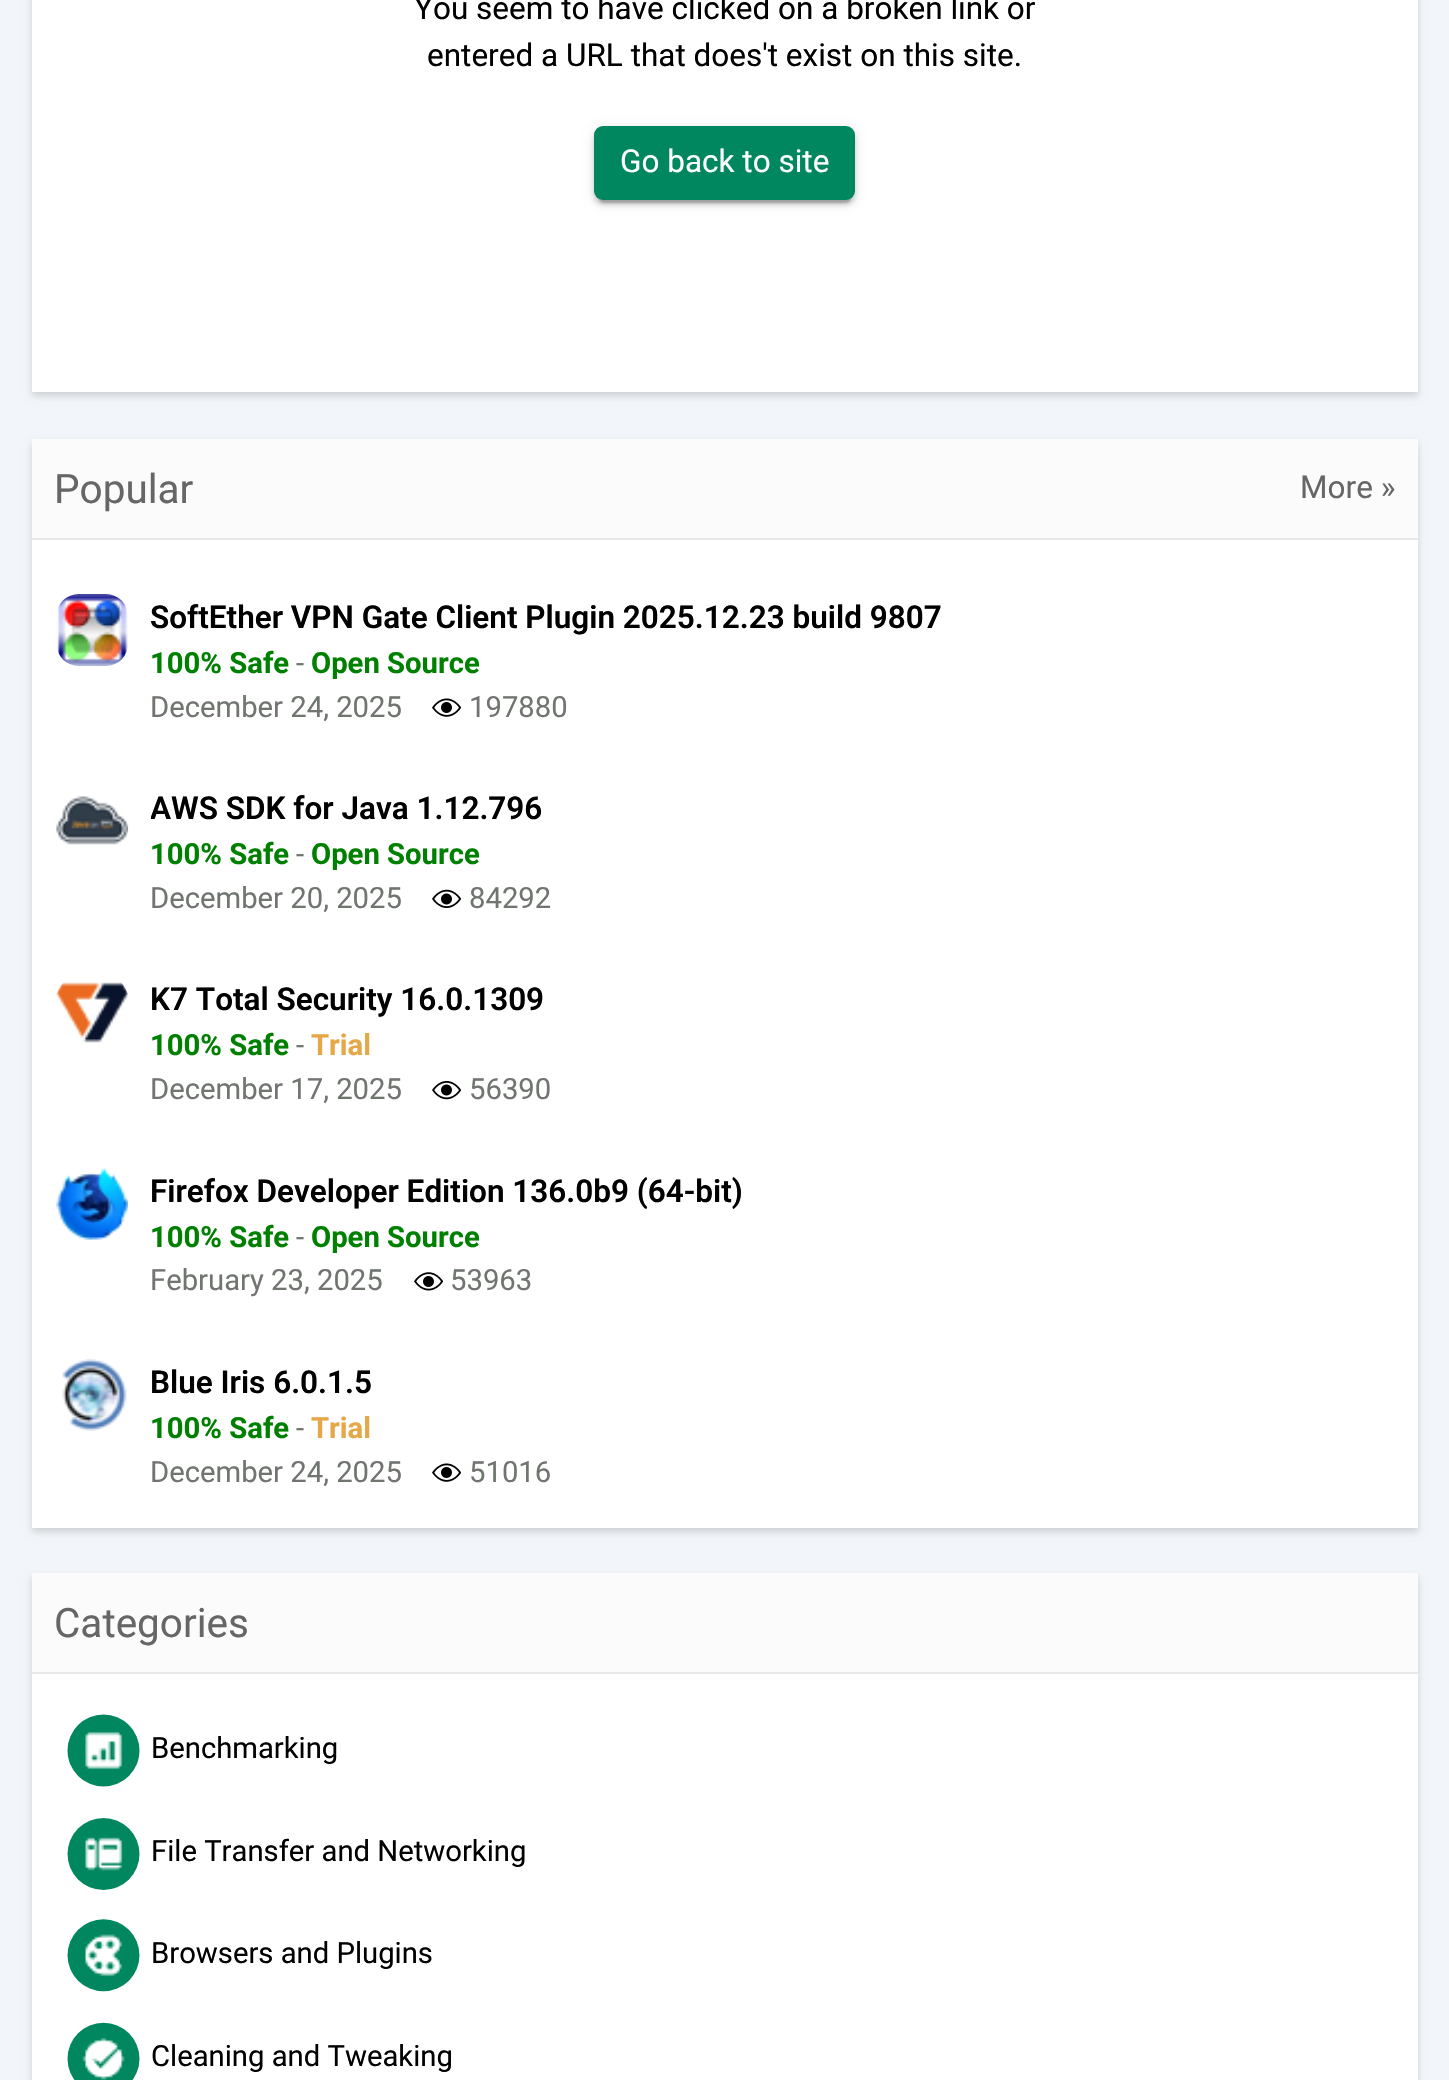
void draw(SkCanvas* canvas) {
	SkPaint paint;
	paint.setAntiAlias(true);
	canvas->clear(0xfff2f5f9);
	paint.setColor(0x26000000);
	paint.setMaskFilter(SkMaskFilter::MakeBlur(kNormal_SkBlurStyle, 3.5));
	canvas->drawRect(SkRect::MakeXYWH(32, -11, 1386, 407), paint);
	paint.setMaskFilter(nullptr);
	paint.setColor(0xffffffff);
	canvas->drawRect(SkRect::MakeXYWH(32, 0, 1386, 392), paint);
	SkFont f1(fontMgr->matchFamilyStyle("Roboto", SkFontStyle::Normal()), 31.5);
	f1.setSubpixel(true);
	paint.setColor(0xff000000);
	canvas->drawString("You seem to have clicked on a broken link or", 414, 19, f1, paint);
	canvas->drawString("entered a URL that does't exist on this site.", 427, 66, f1, paint);
	paint.setColor(0x1f000000);
	paint.setMaskFilter(SkMaskFilter::MakeBlur(kNormal_SkBlurStyle, 5.5));
	canvas->drawRoundRect(SkRect::MakeXYWH(594, 128, 261, 75), 9, 9, paint);
	paint.setMaskFilter(nullptr);
	paint.setColor(0x24000000);
	paint.setMaskFilter(SkMaskFilter::MakeBlur(kNormal_SkBlurStyle, 2));
	canvas->drawRoundRect(SkRect::MakeXYWH(594, 131, 261, 74), 9, 9, paint);
	paint.setMaskFilter(nullptr);
	paint.setColor(0x33000000);
	paint.setMaskFilter(SkMaskFilter::MakeBlur(kNormal_SkBlurStyle, 1));
	canvas->drawRoundRect(SkRect::MakeXYWH(599, 137, 252, 66), 5, 5, paint);
	paint.setMaskFilter(nullptr);
	paint.setColor(0xff00875f);
	canvas->drawRoundRect(SkRect::MakeXYWH(594, 126, 261, 74), 9, 9, paint);
	paint.setColor(0xffffffff);
	canvas->drawString("Go back to site", 620, 172, f1, paint);
	paint.setColor(0x26000000);
	paint.setMaskFilter(SkMaskFilter::MakeBlur(kNormal_SkBlurStyle, 3.5));
	canvas->drawRect(SkRect::MakeXYWH(32, 443, 1386, 1089), paint);
	paint.setMaskFilter(nullptr);
	paint.setColor(0xffffffff);
	canvas->drawRect(SkRect::MakeXYWH(32, 540, 1386, 988), paint);
	paint.setColor(0xfffbfbfb);
	canvas->drawRect(SkRect::MakeXYWH(32, 439, 1386, 99), paint);
	paint.setColor(0xffe8e8e8);
	canvas->drawRect(SkRect::MakeXYWH(32, 538, 1386, 2), paint);
	SkFont f2(fontMgr->matchFamilyStyle("Roboto", SkFontStyle::Normal()), 40.5);
	f2.setSubpixel(true);
	paint.setColor(0xff666666);
	canvas->drawString("Popular", 54, 503, f2, paint);
	canvas->drawString("More »", 1300, 498, f1, paint);
	canvas->drawImageRect(SkImages::DeferredFromEncodedData(SkData::MakeFromFileName("img1.png")), SkRect::MakeXYWH(56, 594, 72, 72), SkSamplingOptions());
	SkFont f3(fontMgr->matchFamilyStyle("Roboto", SkFontStyle(600, SkFontStyle::kNormal_Width, SkFontStyle::kUpright_Slant)), 31.5);
	f3.setSubpixel(true);
	paint.setColor(0xff000000);
	canvas->drawString("SoftEther VPN Gate Client Plugin 2025.12.23 build 9807", 150, 628, f3, paint);
	SkFont f4(fontMgr->matchFamilyStyle("Roboto", SkFontStyle::Bold()), 29.25);
	f4.setSubpixel(true);
	paint.setColor(0xff008000);
	canvas->drawString("100% Safe", 150, 673, f4, paint);
	SkFont f5(fontMgr->matchFamilyStyle("Roboto", SkFontStyle::Normal()), 29.25);
	f5.setSubpixel(true);
	paint.setColor(0xff707570);
	canvas->drawString("-", 296, 673, f5, paint);
	paint.setColor(0xff008000);
	canvas->drawString("Open Source", 311, 673, f4, paint);
	paint.setColor(0xff707570);
	canvas->drawString("December 24, 2025", 150, 717, f5, paint);
	canvas->drawImageRect(SkImages::DeferredFromEncodedData(SkData::MakeFromFileName("img2.png")), SkRect::MakeXYWH(432, 698, 29, 19), SkSamplingOptions());
	canvas->drawString("197880", 469, 717, f5, paint);
	canvas->drawImageRect(SkImages::DeferredFromEncodedData(SkData::MakeFromFileName("img3.png")), SkRect::MakeXYWH(56, 796, 73, 49), SkSamplingOptions());
	canvas->save();
	canvas->clipRect(SkRect::MakeXYWH(151, 785, 1244, 48));
	paint.setColor(0xff000000);
	canvas->drawString("AWS SDK for Java 1.12.796", 150, 819, f3, paint);
	canvas->restore();
	paint.setColor(0xff008000);
	canvas->drawString("100% Safe", 150, 864, f4, paint);
	paint.setColor(0xff707570);
	canvas->drawString("-", 296, 864, f5, paint);
	paint.setColor(0xff008000);
	canvas->drawString("Open Source", 311, 864, f4, paint);
	paint.setColor(0xff707570);
	canvas->drawString("December 20, 2025", 150, 908, f5, paint);
	canvas->drawImageRect(SkImages::DeferredFromEncodedData(SkData::MakeFromFileName("img4.png")), SkRect::MakeXYWH(432, 889, 29, 19), SkSamplingOptions());
	canvas->drawString("84292", 469, 908, f5, paint);
	canvas->drawImageRect(SkImages::DeferredFromEncodedData(SkData::MakeFromFileName("img5.png")), SkRect::MakeXYWH(56, 982, 72, 61), SkSamplingOptions());
	paint.setColor(0xff000000);
	canvas->drawString("K7 Total Security 16.0.1309", 150, 1010, f3, paint);
	paint.setColor(0xff008000);
	canvas->drawString("100% Safe", 150, 1055, f4, paint);
	paint.setColor(0xff707570);
	canvas->drawString("-", 296, 1055, f5, paint);
	paint.setColor(0xffe6a747);
	canvas->drawString("Trial", 311, 1055, f4, paint);
	paint.setColor(0xff707570);
	canvas->drawString("December 17, 2025", 150, 1099, f5, paint);
	canvas->drawImageRect(SkImages::DeferredFromEncodedData(SkData::MakeFromFileName("img6.png")), SkRect::MakeXYWH(432, 1081, 29, 19), SkSamplingOptions());
	canvas->drawString("56390", 469, 1099, f5, paint);
	canvas->drawImageRect(SkImages::DeferredFromEncodedData(SkData::MakeFromFileName("img7.png")), SkRect::MakeXYWH(56, 1168, 73, 72), SkSamplingOptions());
	paint.setColor(0xff000000);
	canvas->drawString("Firefox Developer Edition 136.0b9 (64-bit)", 150, 1202, f3, paint);
	paint.setColor(0xff008000);
	canvas->drawString("100% Safe", 150, 1247, f4, paint);
	paint.setColor(0xff707570);
	canvas->drawString("-", 296, 1247, f5, paint);
	paint.setColor(0xff008000);
	canvas->drawString("Open Source", 311, 1247, f4, paint);
	paint.setColor(0xff707570);
	canvas->drawString("February 23, 2025", 150, 1290, f5, paint);
	canvas->drawImageRect(SkImages::DeferredFromEncodedData(SkData::MakeFromFileName("img8.png")), SkRect::MakeXYWH(414, 1272, 29, 19), SkSamplingOptions());
	canvas->drawString("53963", 450, 1290, f5, paint);
	canvas->drawImageRect(SkImages::DeferredFromEncodedData(SkData::MakeFromFileName("img9.png")), SkRect::MakeXYWH(62, 1359, 65, 72), SkSamplingOptions());
	paint.setColor(0xff000000);
	canvas->drawString("Blue Iris 6.0.1.5", 150, 1393, f3, paint);
	paint.setColor(0xff008000);
	canvas->drawString("100% Safe", 150, 1438, f4, paint);
	paint.setColor(0xff707570);
	canvas->drawString("-", 296, 1438, f5, paint);
	paint.setColor(0xffe6a747);
	canvas->drawString("Trial", 311, 1438, f4, paint);
	paint.setColor(0xff707570);
	canvas->drawString("December 24, 2025", 150, 1482, f5, paint);
	canvas->drawImageRect(SkImages::DeferredFromEncodedData(SkData::MakeFromFileName("img2.png")), SkRect::MakeXYWH(432, 1463, 29, 19), SkSamplingOptions());
	canvas->drawString("51016", 469, 1482, f5, paint);
	paint.setColor(0x26000000);
	paint.setMaskFilter(SkMaskFilter::MakeBlur(kNormal_SkBlurStyle, 3.5));
	canvas->drawRect(SkRect::MakeXYWH(32, 1577, 1386, 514), paint);
	paint.setMaskFilter(nullptr);
	paint.setColor(0xffffffff);
	canvas->drawRect(SkRect::MakeXYWH(32, 1674, 1386, 406), paint);
	paint.setColor(0xfffbfbfb);
	canvas->drawRect(SkRect::MakeXYWH(32, 1573, 1386, 99), paint);
	paint.setColor(0xffe8e8e8);
	canvas->drawRect(SkRect::MakeXYWH(32, 1672, 1386, 2), paint);
	paint.setColor(0xff666666);
	canvas->drawString("Categories", 54, 1637, f2, paint);
	canvas->drawImageRect(SkImages::DeferredFromEncodedData(SkData::MakeFromFileName("img10.png")), SkRect::MakeXYWH(67, 1714, 73, 73), SkSamplingOptions());
	paint.setColor(0xff000000);
	canvas->drawString("Benchmarking", 151, 1758, f5, paint);
	canvas->drawImageRect(SkImages::DeferredFromEncodedData(SkData::MakeFromFileName("img11.png")), SkRect::MakeXYWH(67, 1818, 73, 72), SkSamplingOptions());
	canvas->drawString("File Transfer and Networking", 151, 1861, f5, paint);
	canvas->drawImageRect(SkImages::DeferredFromEncodedData(SkData::MakeFromFileName("img12.png")), SkRect::MakeXYWH(67, 1919, 73, 73), SkSamplingOptions());
	canvas->drawString("Browsers and Plugins", 151, 1963, f5, paint);
	canvas->drawImageRect(SkImages::DeferredFromEncodedData(SkData::MakeFromFileName("img13.png")), SkRect::MakeXYWH(67, 2022, 73, 58), SkSamplingOptions());
	canvas->drawString("Cleaning and Tweaking", 151, 2066, f5, paint);
}
